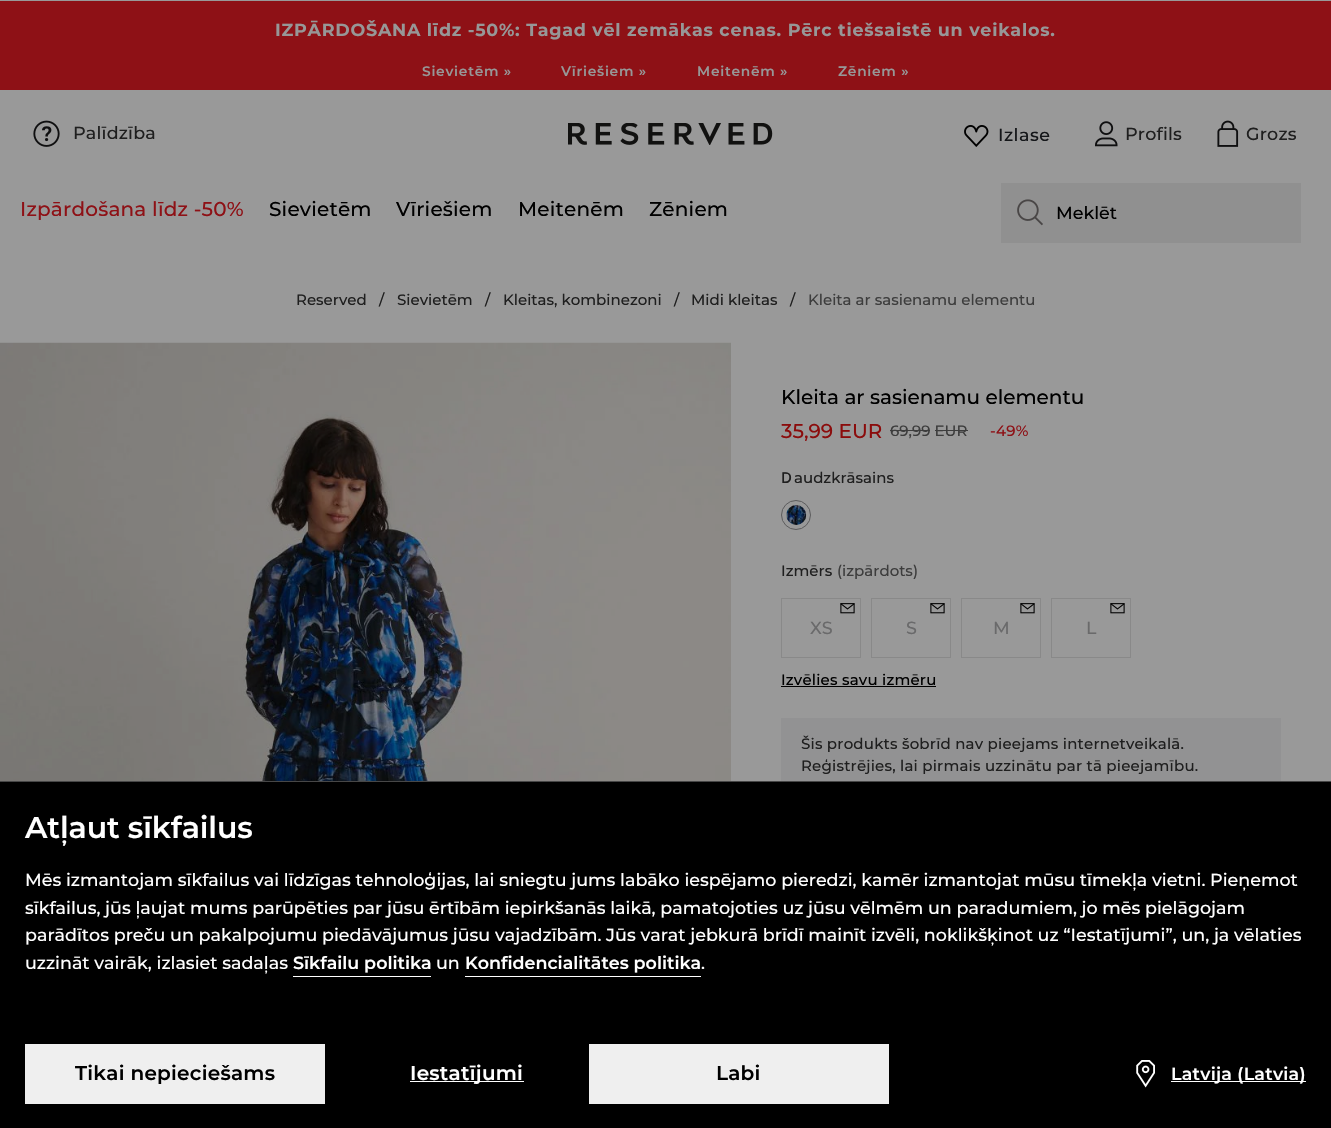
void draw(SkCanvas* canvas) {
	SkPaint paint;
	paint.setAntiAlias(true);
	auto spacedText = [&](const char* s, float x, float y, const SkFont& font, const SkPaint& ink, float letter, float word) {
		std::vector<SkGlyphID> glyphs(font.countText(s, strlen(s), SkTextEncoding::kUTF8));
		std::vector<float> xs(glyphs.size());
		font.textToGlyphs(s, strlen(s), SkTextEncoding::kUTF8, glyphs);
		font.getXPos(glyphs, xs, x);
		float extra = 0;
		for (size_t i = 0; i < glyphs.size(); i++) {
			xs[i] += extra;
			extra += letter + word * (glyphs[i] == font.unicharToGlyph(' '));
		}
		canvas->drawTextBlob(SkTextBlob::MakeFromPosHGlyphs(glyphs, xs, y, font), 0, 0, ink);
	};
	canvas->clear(0xff999999);
	paint.setColor(0xff8e1116);
	canvas->drawRect(SkRect::MakeXYWH(0, 1, 1331, 89), paint);
	SkFont f1(fontMgr->matchFamilyStyle("Montserrat", SkFontStyle::Bold()), 17.5);
	f1.setSubpixel(true);
	paint.setColor(0xff979797);
	spacedText("IZPĀRDOŠANA līdz -50%: Tagad vēl zemākas cenas. Pērc tiešsaistē un veikalos.", 275, 36, f1, paint, 0.75, 0);
	SkFont f2(fontMgr->matchFamilyStyle("Montserrat", SkFontStyle(600, SkFontStyle::kNormal_Width, SkFontStyle::kUpright_Slant)), 13.75);
	f2.setSubpixel(true);
	spacedText("Sievietēm »", 422, 76, f2, paint, 0.75, 0);
	spacedText("Vīriešiem »", 561, 76, f2, paint, 0.75, 0);
	spacedText("Meitenēm »", 697, 76, f2, paint, 0.75, 0);
	spacedText("Zēniem »", 838, 76, f2, paint, 0.75, 0);
	canvas->drawImageRect(SkImages::DeferredFromEncodedData(SkData::MakeFromFileName("img1.png")), SkRect::MakeXYWH(33, 120, 27, 27), SkSamplingOptions());
	SkFont f3(fontMgr->matchFamilyStyle("Montserrat", SkFontStyle(500, SkFontStyle::kNormal_Width, SkFontStyle::kUpright_Slant)), 17.5);
	f3.setSubpixel(true);
	paint.setColor(0xff1f1f1f);
	spacedText("Palīdzība", 73, 139, f3, paint, 0.2, 0);
	canvas->drawImageRect(SkImages::DeferredFromEncodedData(SkData::MakeFromFileName("img2.png")), SkRect::MakeXYWH(568, 123, 205, 22), SkSamplingOptions());
	canvas->drawImageRect(SkImages::DeferredFromEncodedData(SkData::MakeFromFileName("img3.png")), SkRect::MakeXYWH(964, 125, 25, 22), SkSamplingOptions());
	paint.setColor(0xff141619);
	spacedText("Izlase", 998, 141, f3, paint, 0.5, 0);
	canvas->drawImageRect(SkImages::DeferredFromEncodedData(SkData::MakeFromFileName("img4.png")), SkRect::MakeXYWH(1095, 121, 23, 26), SkSamplingOptions());
	paint.setColor(0xff1f1f1f);
	spacedText("Profils", 1125, 140, f3, paint, 0.2, 0);
	canvas->drawImageRect(SkImages::DeferredFromEncodedData(SkData::MakeFromFileName("img5.png")), SkRect::MakeXYWH(1217, 120, 22, 27), SkSamplingOptions());
	spacedText("Grozs", 1246, 140, f3, paint, 0.2, 0);
	SkFont f4(fontMgr->matchFamilyStyle("Montserrat", SkFontStyle(500, SkFontStyle::kNormal_Width, SkFontStyle::kUpright_Slant)), 20);
	f4.setSubpixel(true);
	paint.setColor(0xff8e1116);
	spacedText("Izpārdošana līdz -50%", 20, 216, f4, paint, 0.2, 0);
	paint.setColor(0xff000000);
	spacedText("Sievietēm", 269, 216, f4, paint, 0.2, 0);
	spacedText("Vīriešiem", 396, 216, f4, paint, 0.2, 0);
	spacedText("Meitenēm", 518, 216, f4, paint, 0.2, 0);
	spacedText("Zēniem", 649, 216, f4, paint, 0.2, 0);
	paint.setColor(0xff909090);
	canvas->drawRect(SkRect::MakeXYWH(1001, 183, 300, 60), paint);
	canvas->drawImageRect(SkImages::DeferredFromEncodedData(SkData::MakeFromFileName("img6.png")), SkRect::MakeXYWH(1017, 199, 26, 27), SkSamplingOptions());
	paint.setColor(0xff000000);
	canvas->drawString("Meklēt", 1056, 219, f3, paint);
	SkFont f5(fontMgr->matchFamilyStyle("Montserrat", SkFontStyle(500, SkFontStyle::kNormal_Width, SkFontStyle::kUpright_Slant)), 15);
	f5.setSubpixel(true);
	paint.setColor(0xff1f1f1f);
	canvas->drawString("Reserved", 296, 305, f5, paint);
	canvas->drawString("/", 379, 305, f5, paint);
	canvas->drawString("Sievietēm", 397, 305, f5, paint);
	canvas->drawString("/", 485, 305, f5, paint);
	canvas->drawString("Kleitas, kombinezoni", 503, 305, f5, paint);
	canvas->drawString("/", 674, 305, f5, paint);
	canvas->drawString("Midi kleitas", 691, 305, f5, paint);
	canvas->drawString("/", 790, 305, f5, paint);
	paint.setColor(0xff3d3d3d);
	canvas->drawString("Kleita ar sasienamu elementu", 808, 305, f5, paint);
	canvas->drawImageRect(SkImages::DeferredFromEncodedData(SkData::MakeFromFileName("img7.png")), SkRect::MakeXYWH(0, 342, 731, 439), SkSamplingOptions());
	paint.setColor(0xff000000);
	canvas->drawString("Kleita ar sasienamu elementu", 781, 404, f4, paint);
	paint.setColor(0xff8b0c0c);
	canvas->drawString("35,99 EUR", 781, 438, f4, paint);
	paint.setColor(0xff3d3d3d);
	canvas->drawString("69,99 EUR", 890, 436, f5, paint);
	canvas->drawRect(SkRect::MakeXYWH(890, 430, 40, 1), paint);
	canvas->drawRect(SkRect::MakeXYWH(935, 430, 33, 1), paint);
	paint.setColor(0xff8e1116);
	spacedText("-49%", 990, 436, f5, paint, 0.25, 0);
	SkFont f6(fontMgr->matchFamilyStyle("Noto Sans", SkFontStyle(500, SkFontStyle::kNormal_Width, SkFontStyle::kUpright_Slant)), 15);
	f6.setSubpixel(true);
	paint.setColor(0xff1f1f1f);
	canvas->drawString("D", 781, 483, f6, paint);
	canvas->drawString("audzkrāsains", 794, 483, f5, paint);
	paint.setStroke(true);
	paint.setStrokeWidth(1);
	paint.setColor(0xff5b5b5c);
	canvas->drawCircle(796, 515, 14.5, paint);
	canvas->drawImageRect(SkImages::DeferredFromEncodedData(SkData::MakeFromFileName("img8.png")), SkRect::MakeXYWH(786, 505, 21, 20), SkSamplingOptions());
	paint.setStroke(false);
	paint.setColor(0xff1f1f1f);
	canvas->drawString("Izmērs", 781, 576, f5, paint);
	paint.setColor(0xff3d3d3d);
	canvas->drawString("(izpārdots)", 837, 576, f5, paint);
	paint.setStroke(true);
	paint.setColor(0xff898989);
	canvas->drawRect(SkRect::MakeXYWH(781.5, 598.5, 79, 59), paint);
	canvas->drawImageRect(SkImages::DeferredFromEncodedData(SkData::MakeFromFileName("img9.png")), SkRect::MakeXYWH(840, 603, 15, 11), SkSamplingOptions());
	paint.setStroke(false);
	paint.setColor(0xff6a6a6b);
	canvas->drawString("XS", 810, 634, f3, paint);
	paint.setStroke(true);
	paint.setColor(0xff898989);
	canvas->drawRect(SkRect::MakeXYWH(871.5, 598.5, 79, 59), paint);
	canvas->drawImageRect(SkImages::DeferredFromEncodedData(SkData::MakeFromFileName("img9.png")), SkRect::MakeXYWH(930, 603, 15, 11), SkSamplingOptions());
	paint.setStroke(false);
	paint.setColor(0xff6a6a6b);
	canvas->drawString("S", 906, 634, f3, paint);
	paint.setStroke(true);
	paint.setColor(0xff898989);
	canvas->drawRect(SkRect::MakeXYWH(961.5, 598.5, 79, 59), paint);
	canvas->drawImageRect(SkImages::DeferredFromEncodedData(SkData::MakeFromFileName("img9.png")), SkRect::MakeXYWH(1020, 603, 15, 11), SkSamplingOptions());
	paint.setStroke(false);
	paint.setColor(0xff6a6a6b);
	canvas->drawString("M", 993, 634, f3, paint);
	paint.setStroke(true);
	paint.setColor(0xff898989);
	canvas->drawRect(SkRect::MakeXYWH(1051.5, 598.5, 79, 59), paint);
	canvas->drawImageRect(SkImages::DeferredFromEncodedData(SkData::MakeFromFileName("img9.png")), SkRect::MakeXYWH(1110, 603, 15, 11), SkSamplingOptions());
	paint.setStroke(false);
	paint.setColor(0xff6a6a6b);
	canvas->drawString("L", 1086, 634, f3, paint);
	paint.setColor(0xff000000);
	spacedText("Izvēlies savu izmēru", 781, 685, f5, paint, 0.2, 0);
	canvas->drawRect(SkRect::MakeXYWH(781, 686, 155, 1), paint);
	paint.setColor(0xff929293);
	canvas->drawRect(SkRect::MakeXYWH(781, 718, 500, 63), paint);
	paint.setColor(0xff1f1f1f);
	spacedText("Šis produkts šobrīd nav pieejams internetveikalā.", 801, 749, f5, paint, 0.2, 0);
	spacedText("Reģistrējies, lai pirmais uzzinātu par tā pieejamību.", 801, 771, f5, paint, 0.2, 0);
	paint.setColor(0xff000000);
	canvas->drawRect(SkRect::MakeXYWH(0, 782, 1331, 346), paint);
	paint.setColor(0xff474747);
	canvas->drawRect(SkRect::MakeXYWH(0, 781, 1331, 1), paint);
	SkFont f7(fontMgr->matchFamilyStyle("Montserrat", SkFontStyle(600, SkFontStyle::kNormal_Width, SkFontStyle::kUpright_Slant)), 30);
	f7.setSubpixel(true);
	paint.setColor(0xffffffff);
	spacedText("Atļaut sīkfailus", 25, 838, f7, paint, -0.1, 0);
	canvas->drawString("Mēs izmantojam sīkfailus vai līdzīgas tehnoloģijas, lai sniegtu jums labāko iespējamo pieredzi, kamēr izmantojat mūsu tīmekļa vietni. Pieņemot", 25, 886, f3, paint);
	canvas->drawString("sīkfailus, jūs ļaujat mums parūpēties par jūsu ērtībām iepirkšanās laikā, pamatojoties uz jūsu vēlmēm un paradumiem, jo mēs pielāgojam", 25, 914, f3, paint);
	canvas->drawString("parādītos preču un pakalpojumu piedāvājumus jūsu vajadzībām. Jūs varat jebkurā brīdī mainīt izvēli, noklikšķinot uz “Iestatījumi”, un, ja vēlaties", 25, 941, f3, paint);
	canvas->drawString("uzzināt vairāk, izlasiet sadaļas", 25, 969, f3, paint);
	SkFont f8(fontMgr->matchFamilyStyle("Montserrat", SkFontStyle(600, SkFontStyle::kNormal_Width, SkFontStyle::kUpright_Slant)), 17.5);
	f8.setSubpixel(true);
	canvas->drawString("Sīkfailu politika", 293, 969, f8, paint);
	canvas->drawRect(SkRect::MakeXYWH(293, 976, 138, 1), paint);
	canvas->drawString("un", 436, 969, f3, paint);
	canvas->drawString("Konfidencialitātes politika", 465, 969, f8, paint);
	canvas->drawRect(SkRect::MakeXYWH(465, 976, 236, 1), paint);
	canvas->drawString(".", 701, 969, f3, paint);
	paint.setColor(0xffefefef);
	canvas->drawRect(SkRect::MakeXYWH(25, 1044, 300, 60), paint);
	SkFont f9(fontMgr->matchFamilyStyle("Montserrat", SkFontStyle(600, SkFontStyle::kNormal_Width, SkFontStyle::kUpright_Slant)), 20);
	f9.setSubpixel(true);
	paint.setColor(0xff000000);
	spacedText("Tikai nepieciešams", 75, 1080, f9, paint, 0.25, 0);
	paint.setColor(0xffffffff);
	canvas->drawRect(SkRect::MakeXYWH(410, 1081, 114, 1), paint);
	spacedText("Iestatījumi", 410, 1080, f9, paint, 0.25, 0);
	paint.setColor(0xffefefef);
	canvas->drawRect(SkRect::MakeXYWH(589, 1044, 300, 60), paint);
	paint.setColor(0xff000000);
	spacedText("Labi", 716, 1080, f9, paint, 0.25, 0);
	canvas->drawImageRect(SkImages::DeferredFromEncodedData(SkData::MakeFromFileName("img10.png")), SkRect::MakeXYWH(1136, 1060, 19, 28), SkSamplingOptions());
	paint.setColor(0xffffffff);
	canvas->drawRect(SkRect::MakeXYWH(1171, 1081, 135, 1), paint);
	spacedText("Latvija (Latvia)", 1171, 1080, f8, paint, 0.25, 0);
}
